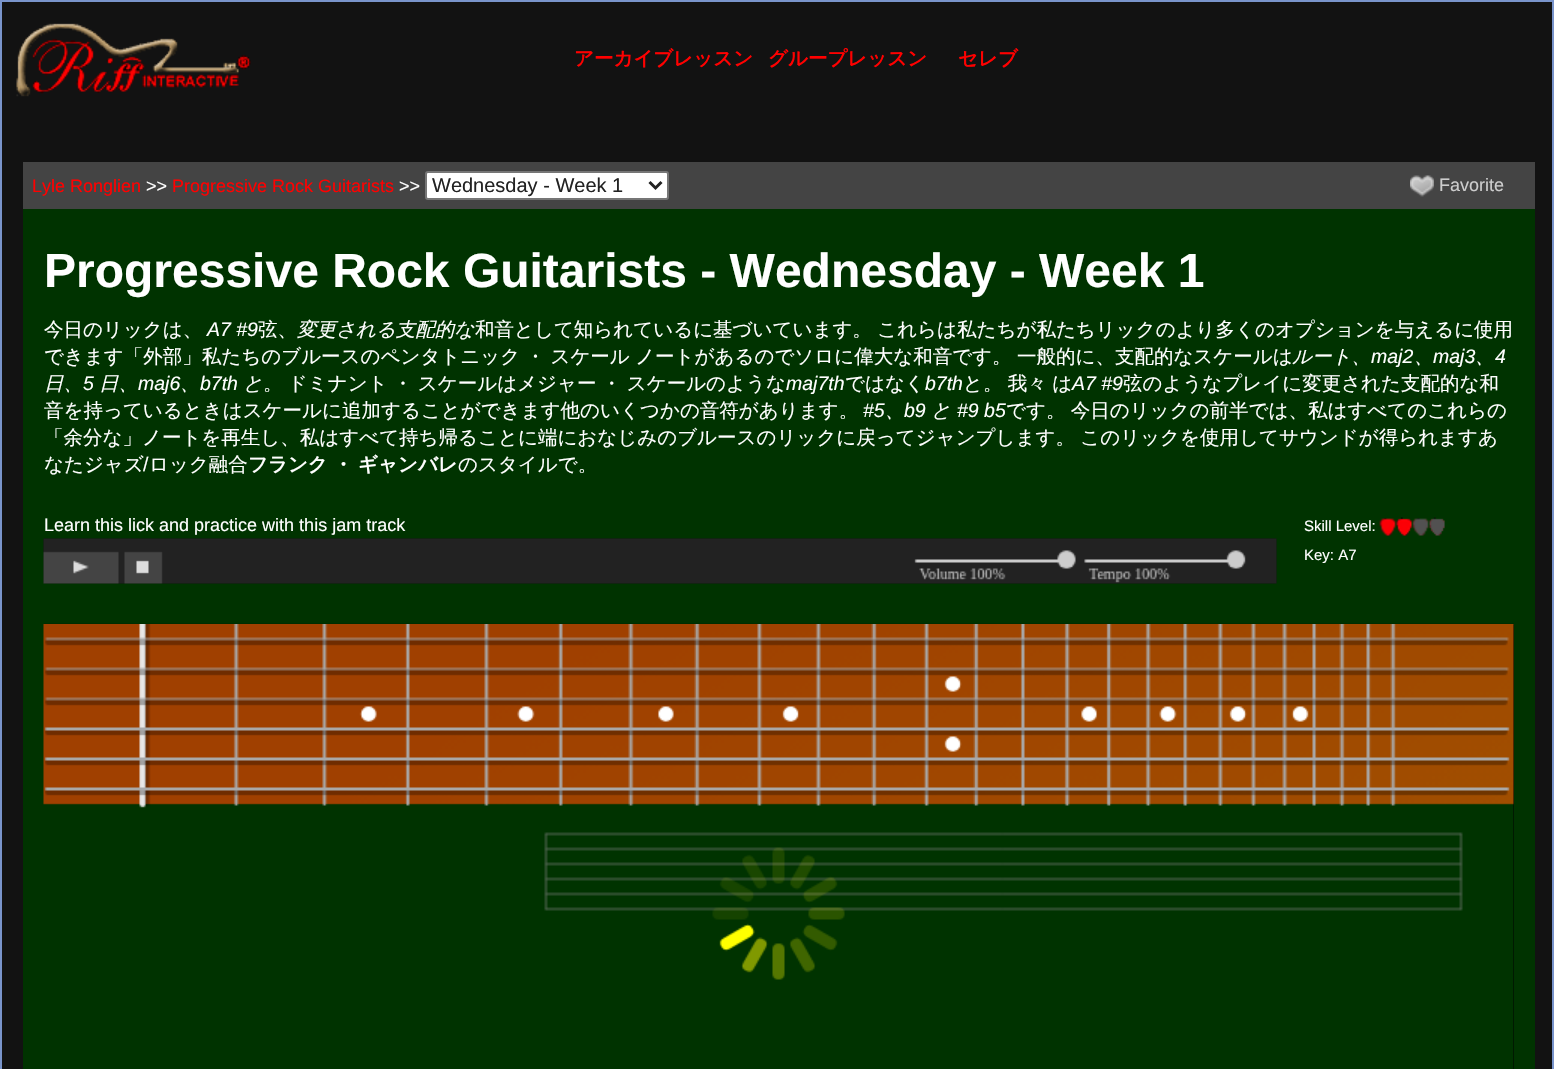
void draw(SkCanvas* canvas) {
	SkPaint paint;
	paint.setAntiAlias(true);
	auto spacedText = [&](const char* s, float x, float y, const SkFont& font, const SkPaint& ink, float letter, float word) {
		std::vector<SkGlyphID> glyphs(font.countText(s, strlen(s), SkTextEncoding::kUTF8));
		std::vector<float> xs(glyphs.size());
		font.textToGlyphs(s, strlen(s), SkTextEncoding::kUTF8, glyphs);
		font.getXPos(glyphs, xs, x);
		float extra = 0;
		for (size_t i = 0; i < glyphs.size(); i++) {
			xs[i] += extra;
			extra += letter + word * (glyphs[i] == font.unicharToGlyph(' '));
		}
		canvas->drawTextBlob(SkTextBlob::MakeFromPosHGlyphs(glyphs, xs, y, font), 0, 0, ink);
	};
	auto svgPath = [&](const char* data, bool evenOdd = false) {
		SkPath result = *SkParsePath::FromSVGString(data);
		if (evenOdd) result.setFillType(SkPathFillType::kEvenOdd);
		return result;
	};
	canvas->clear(0xff121212);
	paint.setStroke(true);
	paint.setStrokeWidth(2);
	paint.setColor(0xff7994cb);
	canvas->drawRect(SkRect::MakeXYWH(1, 1, 1552, 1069), paint);
	canvas->drawImageRect(SkImages::DeferredFromEncodedData(SkData::MakeFromFileName("img1.png")), SkRect::MakeXYWH(16, 23, 235, 74), SkSamplingOptions());
	SkFont f1(fontMgr->matchFamilyStyle("WenQuanYi Zen Hei", SkFontStyle::Bold()), 19.5);
	f1.setSubpixel(true);
	paint.setStroke(false);
	paint.setColor(0xffff0000);
	canvas->drawString("アーカイブレッスン", 574, 65, f1, paint);
	canvas->drawString("グループレッスン", 768, 65, f1, paint);
	canvas->drawString("セレブ", 958, 65, f1, paint);
	paint.setColor(0xff444444);
	canvas->drawRect(SkRect::MakeXYWH(23, 162, 1512, 47), paint);
	SkFont f2(fontMgr->matchFamilyStyle("Liberation Sans", SkFontStyle::Normal()), 18);
	f2.setSubpixel(true);
	paint.setColor(0xffff0000);
	canvas->drawString("Lyle Ronglien", 32, 192, f2, paint);
	paint.setColor(0xffffffff);
	canvas->drawString(">>", 146, 192, f2, paint);
	paint.setColor(0xffff0000);
	canvas->drawString("Progressive Rock Guitarists", 172, 192, f2, paint);
	paint.setColor(0xffffffff);
	canvas->drawString(">>", 399, 192, f2, paint);
	canvas->drawRoundRect(SkRect::MakeXYWH(426, 172, 242, 27), 2, 2, paint);
	paint.setStroke(true);
	paint.setColor(0xff767676);
	canvas->drawRoundRect(SkRect::MakeXYWH(426, 172, 242, 27), 2, 2, paint);
	paint.setStrokeWidth(3);
	paint.setColor(0xff222222);
	canvas->drawPath(svgPath("M649.5 182L655.5 188L661.5 182"), paint);
	SkFont f3(fontMgr->matchFamilyStyle("Liberation Sans", SkFontStyle::Normal()), 20);
	f3.setSubpixel(true);
	paint.setStroke(false);
	canvas->drawString("Wednesday - Week 1", 432, 192, f3, paint);
	canvas->drawImageRect(SkImages::DeferredFromEncodedData(SkData::MakeFromFileName("img2.png")), SkRect::MakeXYWH(1410, 175, 24, 22), SkSamplingOptions());
	paint.setColor(0xffcccccc);
	canvas->drawString("Favorite", 1439, 191, f2, paint);
	paint.setColor(0xff003300);
	canvas->drawRect(SkRect::MakeXYWH(23, 209, 1512, 860), paint);
	SkFont f4(fontMgr->matchFamilyStyle("Liberation Sans", SkFontStyle::Bold()), 48);
	f4.setSubpixel(true);
	paint.setColor(0xffffffff);
	canvas->drawString("Progressive Rock Guitarists - Wednesday - Week 1", 44, 287, f4, paint);
	SkFont f5(fontMgr->matchFamilyStyle("WenQuanYi Zen Hei", SkFontStyle(500, SkFontStyle::kNormal_Width, SkFontStyle::kUpright_Slant)), 19.5);
	f5.setSubpixel(true);
	canvas->drawString("今日のリックは、", 44, 336, f5, paint);
	SkFont f6(fontMgr->matchFamilyStyle("Liberation Sans", SkFontStyle::Italic()), 19.5);
	f6.setSubpixel(true);
	canvas->drawString("A7 #9", 207, 336, f6, paint);
	canvas->drawString("弦、", 258, 336, f5, paint);
	SkFont f7(fontMgr->matchFamilyStyle("WenQuanYi Zen Hei", SkFontStyle(500, SkFontStyle::kNormal_Width, SkFontStyle::kItalic_Slant)), 19.5);
	f7.setSubpixel(true);
	canvas->drawString("変更される支配的な", 297, 336, f7, paint);
	spacedText("和音として知られているに基づいています。 これらは私たちが私たちリックのより多くのオプションを与えるに使用", 475, 336, f5, paint, 0, -0.5);
	spacedText("できます「外部」私たちのブルースのペンタトニック ・ スケール ノートがあるのでソロに偉大な和音です。 一般的に、支配的なスケールは", 44, 363, f5, paint, 0, -0.5);
	canvas->drawString("ルート、", 1292, 363, f7, paint);
	canvas->drawString("maj2", 1371, 363, f6, paint);
	canvas->drawString("maj3", 1433, 363, f6, paint);
	canvas->drawString("4", 1495, 363, f6, paint);
	canvas->drawString("、", 1414, 363, f7, paint);
	canvas->drawString("、", 1475, 363, f7, paint);
	canvas->drawString("日、", 44, 390, f7, paint);
	canvas->drawString("5", 83, 390, f6, paint);
	canvas->drawString("日、", 99, 390, f7, paint);
	canvas->drawString("maj6", 138, 390, f6, paint);
	canvas->drawString("、", 180, 390, f7, paint);
	canvas->drawString("b7th", 200, 390, f6, paint);
	canvas->drawString("と", 243, 390, f7, paint);
	spacedText("。 ドミナント ・ スケールはメジャー ・ スケールのような", 263, 390, f5, paint, 0, -0.5);
	canvas->drawString("maj7th", 786, 390, f6, paint);
	canvas->drawString("ではなく", 845, 390, f5, paint);
	canvas->drawString("b7th", 925, 390, f6, paint);
	spacedText("と。 我々 は", 963, 390, f5, paint, 0, -0.5);
	canvas->drawString("A7 #9", 1072, 390, f6, paint);
	canvas->drawString("弦のようなプレイに変更された支配的な和", 1123, 390, f5, paint);
	canvas->drawString("音を持っているときはスケールに追加することができます他のいくつかの音符があります。", 44, 417, f5, paint);
	canvas->drawString("#5", 863, 417, f6, paint);
	canvas->drawString("、", 885, 417, f7, paint);
	canvas->drawString("b9", 904, 417, f6, paint);
	canvas->drawString("と", 931, 417, f7, paint);
	canvas->drawString("#9 b5", 957, 417, f6, paint);
	spacedText("です。 今日のリックの前半では、私はすべてのこれらの", 1006, 417, f5, paint, 0, -0.5);
	spacedText("「余分な」ノートを再生し、私はすべて持ち帰ることに端におなじみのブルースのリックに戻ってジャンプします。 このリックを使用してサウンドが得られますあ", 44, 444, f5, paint, 0, -0.5);
	canvas->drawString("なたジャズ", 44, 471, f5, paint);
	SkFont f8(fontMgr->matchFamilyStyle("Liberation Sans", SkFontStyle::Normal()), 19.5);
	f8.setSubpixel(true);
	canvas->drawString("/", 143, 471, f8, paint);
	canvas->drawString("ロック融合", 149, 471, f5, paint);
	spacedText("フランク ・ ギャンバレ", 248, 471, f1, paint, 0, -0.5);
	canvas->drawString("のスタイルで。", 458, 471, f5, paint);
	canvas->drawString("Learn this lick and practice with this jam track", 44, 531, f2, paint);
	canvas->drawImageRect(SkImages::DeferredFromEncodedData(SkData::MakeFromFileName("img3.png")), SkRect::MakeXYWH(43, 538, 1234, 46), SkSamplingOptions());
	SkFont f9(fontMgr->matchFamilyStyle("Liberation Sans", SkFontStyle::Normal()), 15);
	f9.setSubpixel(true);
	canvas->drawString("Skill Level:", 1304, 531, f9, paint);
	canvas->drawImageRect(SkImages::DeferredFromEncodedData(SkData::MakeFromFileName("img4.png")), SkRect::MakeXYWH(1379, 518, 17, 18), SkSamplingOptions());
	canvas->drawImageRect(SkImages::DeferredFromEncodedData(SkData::MakeFromFileName("img5.png")), SkRect::MakeXYWH(1396, 517, 16, 19), SkSamplingOptions());
	canvas->drawImageRect(SkImages::DeferredFromEncodedData(SkData::MakeFromFileName("img6.png")), SkRect::MakeXYWH(1412, 518, 17, 18), SkSamplingOptions());
	canvas->drawImageRect(SkImages::DeferredFromEncodedData(SkData::MakeFromFileName("img7.png")), SkRect::MakeXYWH(1429, 517, 16, 19), SkSamplingOptions());
	canvas->drawString("Key: A7", 1304, 560, f9, paint);
	canvas->drawImageRect(SkImages::DeferredFromEncodedData(SkData::MakeFromFileName("img8.png")), SkRect::MakeXYWH(43, 623, 1471, 446), SkSamplingOptions());
}
